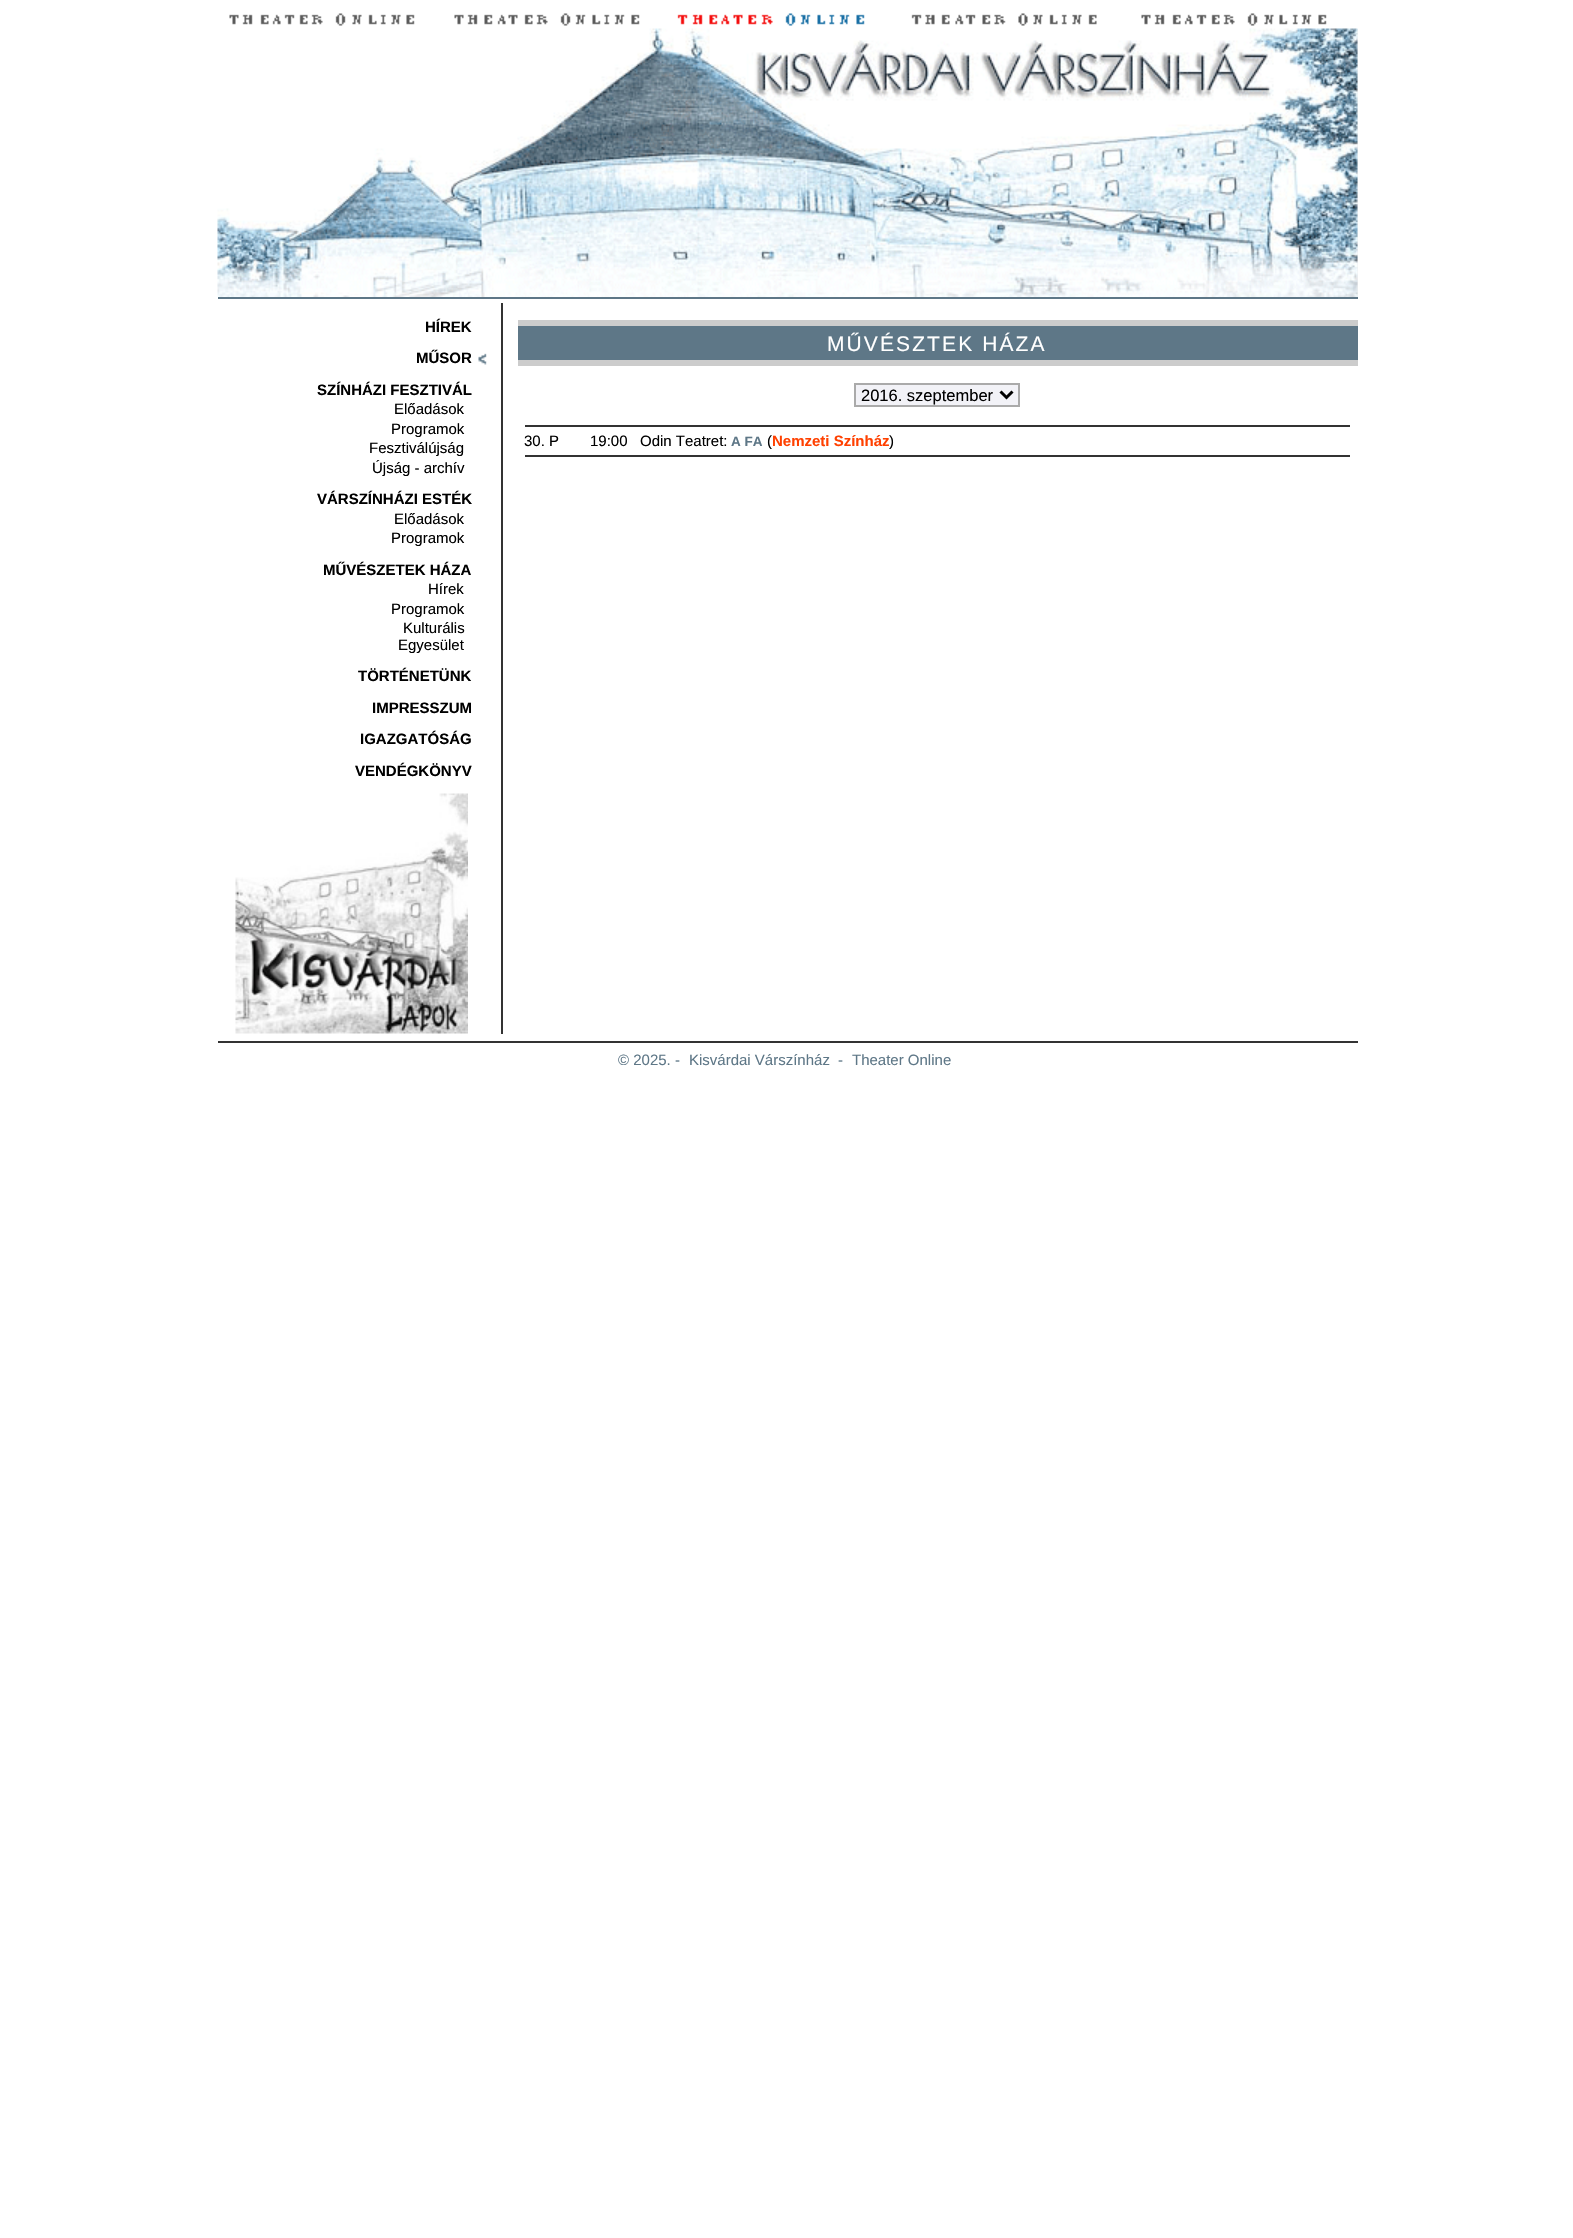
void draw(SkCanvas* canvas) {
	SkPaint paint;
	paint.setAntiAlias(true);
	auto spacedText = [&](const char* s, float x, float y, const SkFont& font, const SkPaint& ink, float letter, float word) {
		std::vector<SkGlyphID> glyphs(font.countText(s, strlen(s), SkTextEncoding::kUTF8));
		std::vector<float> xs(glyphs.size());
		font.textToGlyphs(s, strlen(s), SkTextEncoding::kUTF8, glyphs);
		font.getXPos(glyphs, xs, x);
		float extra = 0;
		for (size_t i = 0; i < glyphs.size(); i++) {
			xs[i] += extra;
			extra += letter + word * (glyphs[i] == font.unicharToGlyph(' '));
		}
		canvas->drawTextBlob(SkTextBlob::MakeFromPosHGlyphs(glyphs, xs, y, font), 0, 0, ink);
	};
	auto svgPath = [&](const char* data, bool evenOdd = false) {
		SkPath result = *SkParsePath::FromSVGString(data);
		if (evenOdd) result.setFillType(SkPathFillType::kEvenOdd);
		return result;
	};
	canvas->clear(0xffffffff);
	canvas->drawImageRect(SkImages::DeferredFromEncodedData(SkData::MakeFromFileName("img1.png")), SkRect::MakeXYWH(229, 13, 1098, 13), SkSamplingOptions());
	paint.setColor(0xffeeeeee);
	canvas->drawRect(SkRect::MakeXYWH(1357, 29, 1, 268), paint);
	canvas->drawImageRect(SkImages::DeferredFromEncodedData(SkData::MakeFromFileName("img2.png")), SkRect::MakeXYWH(217, 28, 1141, 269), SkSamplingOptions());
	paint.setColor(0xff5e7787);
	canvas->drawRect(SkRect::MakeXYWH(218, 297, 1140, 2), paint);
	SkFont f1(fontMgr->matchFamilyStyle("Liberation Sans", SkFontStyle::Bold()), 15);
	f1.setSubpixel(true);
	paint.setColor(0xff000000);
	canvas->drawString("HÍREK", 425, 332, f1, paint);
	canvas->drawImageRect(SkImages::DeferredFromEncodedData(SkData::MakeFromFileName("img3.png")), SkRect::MakeXYWH(478, 353, 9, 12), SkSamplingOptions());
	canvas->drawString("MŰSOR", 416, 363, f1, paint);
	canvas->drawString("SZÍNHÁZI FESZTIVÁL", 317, 395, f1, paint);
	SkFont f2(fontMgr->matchFamilyStyle("Liberation Sans", SkFontStyle::Normal()), 15);
	f2.setSubpixel(true);
	canvas->drawString("Előadások", 394, 414, f2, paint);
	canvas->drawString("Programok", 391, 434, f2, paint);
	canvas->drawString("Fesztiválújság", 369, 453, f2, paint);
	canvas->drawString("Újság - archív", 372, 473, f2, paint);
	canvas->drawString("VÁRSZÍNHÁZI ESTÉK", 317, 504, f1, paint);
	canvas->drawString("Előadások", 394, 524, f2, paint);
	canvas->drawString("Programok", 391, 543, f2, paint);
	canvas->drawString("MŰVÉSZETEK HÁZA", 323, 575, f1, paint);
	canvas->drawString("Hírek", 428, 594, f2, paint);
	canvas->drawString("Programok", 391, 614, f2, paint);
	canvas->drawString("Kulturális", 403, 633, f2, paint);
	canvas->drawString("Egyesület", 398, 650, f2, paint);
	canvas->drawString("TÖRTÉNETÜNK", 358, 681, f1, paint);
	canvas->drawString("IMPRESSZUM", 372, 713, f1, paint);
	canvas->drawString("IGAZGATÓSÁG", 360, 744, f1, paint);
	canvas->drawString("VENDÉGKÖNYV", 355, 776, f1, paint);
	canvas->drawImageRect(SkImages::DeferredFromEncodedData(SkData::MakeFromFileName("img4.png")), SkRect::MakeXYWH(235, 793, 233, 241), SkSamplingOptions());
	paint.setColor(0xff333333);
	canvas->drawRect(SkRect::MakeXYWH(501, 303, 2, 731), paint);
	paint.setColor(0xff5e7787);
	canvas->drawRect(SkRect::MakeXYWH(518, 326, 840, 34), paint);
	paint.setColor(0xffcccccc);
	canvas->drawRect(SkRect::MakeXYWH(518, 320, 840, 6), paint);
	canvas->drawRect(SkRect::MakeXYWH(518, 360, 840, 6), paint);
	SkFont f3(fontMgr->matchFamilyStyle("Liberation Sans", SkFontStyle::Normal()), 21);
	f3.setSubpixel(true);
	paint.setColor(0xffffffff);
	spacedText("MŰVÉSZTEK HÁZA", 827, 351, f3, paint, 2.1, 0);
	paint.setColor(0xfff2f2f7);
	canvas->drawRect(SkRect::MakeXYWH(855, 384, 164, 22), paint);
	paint.setStroke(true);
	paint.setStrokeWidth(2);
	paint.setColor(0xffaaaaaa);
	canvas->drawRect(SkRect::MakeXYWH(855, 384, 164, 22), paint);
	paint.setStrokeWidth(3);
	paint.setColor(0xff000000);
	canvas->drawPath(svgPath("M1000.5 391.5L1006.5 397.5L1012.5 391.5"), paint);
	SkFont f4(fontMgr->matchFamilyStyle("Liberation Sans", SkFontStyle::Normal()), 16.5);
	f4.setSubpixel(true);
	paint.setStroke(false);
	canvas->drawString("2016. szeptember", 861, 401, f4, paint);
	paint.setColor(0xff333333);
	canvas->drawRect(SkRect::MakeXYWH(525, 425, 825, 2), paint);
	paint.setColor(0xff000000);
	canvas->drawString("30. P", 524, 446, f2, paint);
	canvas->drawString("19:00", 590, 446, f2, paint);
	canvas->drawString("Odin Teatret:", 640, 446, f2, paint);
	SkFont f5(fontMgr->matchFamilyStyle("Liberation Sans", SkFontStyle::Bold()), 13.5);
	f5.setSubpixel(true);
	paint.setColor(0xff5e7787);
	canvas->drawString("A FA", 731, 446, f5, paint);
	paint.setColor(0xff000000);
	canvas->drawString("(", 767, 446, f2, paint);
	paint.setColor(0xffff4000);
	canvas->drawString("Nemzeti Színház", 772, 446, f1, paint);
	paint.setColor(0xff000000);
	canvas->drawString(")", 889, 446, f2, paint);
	paint.setColor(0xff333333);
	canvas->drawRect(SkRect::MakeXYWH(525, 455, 825, 2), paint);
	canvas->drawRect(SkRect::MakeXYWH(218, 1041, 1140, 2), paint);
	paint.setColor(0xff5e7787);
	canvas->drawString("© 2025. -", 618, 1065, f2, paint);
	canvas->drawString("Kisvárdai Várszínház", 689, 1065, f2, paint);
	canvas->drawString("-", 838, 1065, f2, paint);
	canvas->drawString("Theater Online", 852, 1065, f2, paint);
}
